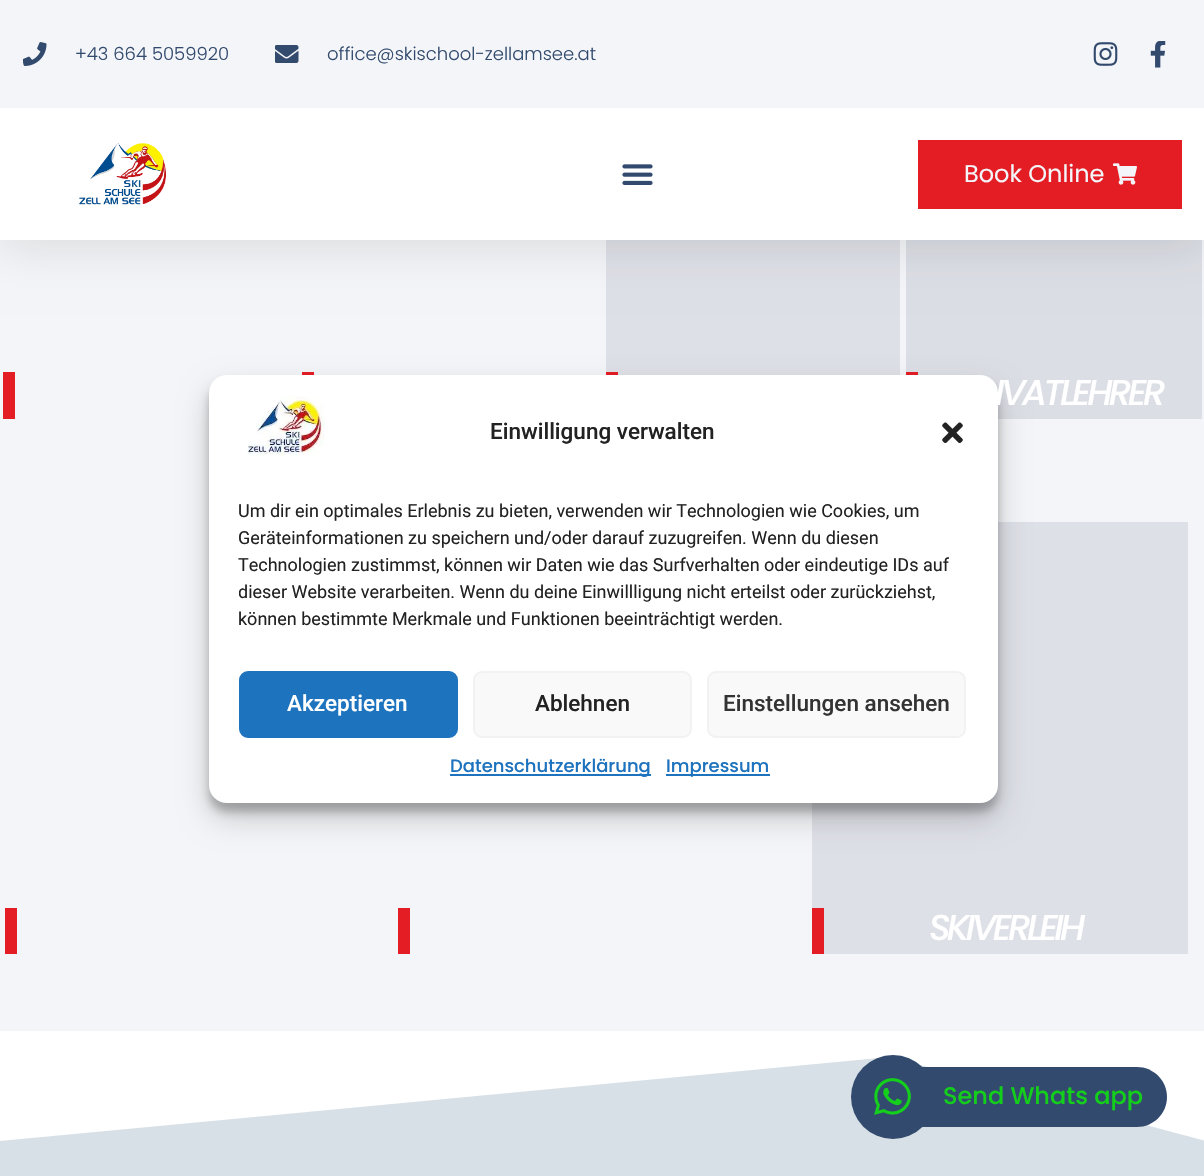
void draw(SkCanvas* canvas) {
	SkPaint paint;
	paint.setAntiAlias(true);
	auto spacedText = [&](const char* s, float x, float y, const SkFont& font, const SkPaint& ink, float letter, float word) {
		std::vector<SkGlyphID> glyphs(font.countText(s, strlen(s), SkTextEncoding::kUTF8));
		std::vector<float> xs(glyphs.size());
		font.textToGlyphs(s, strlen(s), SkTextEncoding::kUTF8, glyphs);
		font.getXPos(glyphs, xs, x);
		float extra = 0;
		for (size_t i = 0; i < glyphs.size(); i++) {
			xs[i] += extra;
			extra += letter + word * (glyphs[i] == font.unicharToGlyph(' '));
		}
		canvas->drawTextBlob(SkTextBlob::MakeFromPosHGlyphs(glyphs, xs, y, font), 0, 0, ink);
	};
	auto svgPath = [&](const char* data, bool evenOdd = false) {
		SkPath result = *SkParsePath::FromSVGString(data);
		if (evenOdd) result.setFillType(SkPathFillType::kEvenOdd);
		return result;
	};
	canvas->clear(0xffffffff);
	paint.setColor(0xfff3f5f8);
	canvas->drawRect(SkRect::MakeXYWH(0, 240, 1204, 791), paint);
	paint.setColor(0xffdee0e7);
	canvas->drawRect(SkRect::MakeXYWH(606, 240, 294, 135), paint);
	paint.setColor(0xffdcdee5);
	canvas->drawRect(SkRect::MakeXYWH(906, 240, 296, 179), paint);
	paint.setColor(0x1a000000);
	paint.setMaskFilter(SkMaskFilter::MakeBlur(kNormal_SkBlurStyle, 22.5));
	canvas->drawRect(SkRect::MakeXYWH(0, 8, 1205, 240), paint);
	paint.setMaskFilter(nullptr);
	paint.setColor(0xfff3f5f8);
	canvas->drawRect(SkRect::MakeXYWH(0, 0, 1204, 108), paint);
	canvas->drawImageRect(SkImages::DeferredFromEncodedData(SkData::MakeFromFileName("img1.png")), SkRect::MakeXYWH(23, 42, 24, 24), SkSamplingOptions());
	SkFont f1(fontMgr->matchFamilyStyle("Poppins", SkFontStyle(300, SkFontStyle::kNormal_Width, SkFontStyle::kUpright_Slant)), 18);
	f1.setSubpixel(true);
	paint.setColor(0xff324a6d);
	canvas->drawString("+43 664 5059920", 75, 60, f1, paint);
	canvas->drawImageRect(SkImages::DeferredFromEncodedData(SkData::MakeFromFileName("img2.png")), SkRect::MakeXYWH(275, 45, 24, 18), SkSamplingOptions());
	canvas->drawString("office@skischool-zellamsee.at", 327, 60, f1, paint);
	canvas->drawImageRect(SkImages::DeferredFromEncodedData(SkData::MakeFromFileName("img3.png")), SkRect::MakeXYWH(1093, 42, 25, 24), SkSamplingOptions());
	canvas->drawImageRect(SkImages::DeferredFromEncodedData(SkData::MakeFromFileName("img4.png")), SkRect::MakeXYWH(1150, 41, 16, 27), SkSamplingOptions());
	paint.setColor(0xffffffff);
	canvas->drawRect(SkRect::MakeXYWH(0, 108, 1204, 132), paint);
	canvas->drawImageRect(SkImages::DeferredFromEncodedData(SkData::MakeFromFileName("img5.png")), SkRect::MakeXYWH(79, 143, 87, 62), SkSamplingOptions());
	canvas->drawImageRect(SkImages::DeferredFromEncodedData(SkData::MakeFromFileName("img6.png")), SkRect::MakeXYWH(622, 164, 31, 21), SkSamplingOptions());
	paint.setColor(0xffe41d25);
	canvas->drawRect(SkRect::MakeXYWH(918, 140, 264, 69), paint);
	SkFont f2(fontMgr->matchFamilyStyle("Poppins", SkFontStyle::Normal()), 24);
	f2.setSubpixel(true);
	paint.setColor(0xfff3f5f8);
	canvas->drawString("Book Online", 964, 182, f2, paint);
	canvas->drawImageRect(SkImages::DeferredFromEncodedData(SkData::MakeFromFileName("img7.png")), SkRect::MakeXYWH(1113, 163, 24, 22), SkSamplingOptions());
	paint.setColor(0xffe41d25);
	canvas->drawRect(SkRect::MakeXYWH(606, 372, 12, 3), paint);
	canvas->drawRect(SkRect::MakeXYWH(302, 372, 12, 3), paint);
	canvas->drawRect(SkRect::MakeXYWH(906, 372, 12, 3), paint);
	paint.setColor(0xffdee0e7);
	canvas->drawRect(SkRect::MakeXYWH(812, 522, 376, 432), paint);
	paint.setColor(0x3b000000);
	paint.setMaskFilter(SkMaskFilter::MakeBlur(kNormal_SkBlurStyle, 4.5));
	canvas->drawRoundRect(SkRect::MakeXYWH(209, 384, 789, 428), 18, 18, paint);
	paint.setMaskFilter(nullptr);
	paint.setColor(0x30000000);
	paint.setMaskFilter(SkMaskFilter::MakeBlur(kNormal_SkBlurStyle, 15));
	canvas->drawRoundRect(SkRect::MakeXYWH(209, 390, 789, 428), 18, 18, paint);
	paint.setMaskFilter(nullptr);
	paint.setColor(0xffffffff);
	canvas->drawRoundRect(SkRect::MakeXYWH(209, 375, 789, 428), 18, 18, paint);
	canvas->drawImageRect(SkImages::DeferredFromEncodedData(SkData::MakeFromFileName("img8.png")), SkRect::MakeXYWH(247, 396, 78, 60), SkSamplingOptions());
	SkFont f3(fontMgr->matchFamilyStyle("Roboto", SkFontStyle(500, SkFontStyle::kNormal_Width, SkFontStyle::kUpright_Slant)), 22.5);
	f3.setSubpixel(true);
	paint.setColor(0xff222222);
	canvas->drawString("Einwilligung verwalten", 490, 439, f3, paint);
	canvas->drawImageRect(SkImages::DeferredFromEncodedData(SkData::MakeFromFileName("img9.png")), SkRect::MakeXYWH(942, 422, 21, 21), SkSamplingOptions());
	SkFont f4(fontMgr->matchFamilyStyle("Roboto", SkFontStyle::Normal()), 18);
	f4.setSubpixel(true);
	canvas->drawString("Um dir ein optimales Erlebnis zu bieten, verwenden wir Technologien wie Cookies, um", 238, 517, f4, paint);
	canvas->save();
	canvas->clipRect(SkRect::MakeXYWH(239, 498, 729, 143));
	canvas->drawString("Geräteinformationen zu speichern und/oder darauf zuzugreifen. Wenn du diesen", 238, 544, f4, paint);
	canvas->restore();
	canvas->drawString("Technologien zustimmst, können wir Daten wie das Surfverhalten oder eindeutige IDs auf", 238, 571, f4, paint);
	canvas->save();
	canvas->clipRect(SkRect::MakeXYWH(239, 498, 729, 143));
	canvas->drawString("dieser Website verarbeiten. Wenn du deine Einwillligung nicht erteilst oder zurückziehst,", 238, 598, f4, paint);
	canvas->restore();
	canvas->drawString("können bestimmte Merkmale und Funktionen beeinträchtigt werden.", 238, 625, f4, paint);
	paint.setColor(0xff1e73be);
	canvas->drawRoundRect(SkRect::MakeXYWH(240, 672, 217, 65), 8, 8, paint);
	paint.setStroke(true);
	paint.setStrokeWidth(2);
	canvas->drawRoundRect(SkRect::MakeXYWH(240, 672, 217, 65), 8, 8, paint);
	paint.setStroke(false);
	paint.setColor(0xffffffff);
	canvas->drawString("Akzeptieren", 287, 711, f3, paint);
	paint.setColor(0xfff9f9f9);
	canvas->drawRoundRect(SkRect::MakeXYWH(474, 672, 217, 65), 8, 8, paint);
	paint.setStroke(true);
	paint.setColor(0xfff2f2f2);
	canvas->drawRoundRect(SkRect::MakeXYWH(474, 672, 217, 65), 8, 8, paint);
	paint.setStroke(false);
	paint.setColor(0xff222222);
	canvas->drawString("Ablehnen", 535, 711, f3, paint);
	paint.setColor(0xfff9f9f9);
	canvas->drawRoundRect(SkRect::MakeXYWH(708, 672, 257, 65), 8, 8, paint);
	paint.setStroke(true);
	paint.setColor(0xfff2f2f2);
	canvas->drawRoundRect(SkRect::MakeXYWH(708, 672, 257, 65), 8, 8, paint);
	paint.setStroke(false);
	paint.setColor(0xff333333);
	canvas->drawString("Einstellungen ansehen", 723, 711, f3, paint);
	paint.setColor(0xff1e73be);
	canvas->drawRect(SkRect::MakeXYWH(450, 774, 201, 2), paint);
	SkFont f5(fontMgr->matchFamilyStyle("Poppins", SkFontStyle(500, SkFontStyle::kNormal_Width, SkFontStyle::kUpright_Slant)), 18);
	f5.setSubpixel(true);
	canvas->drawString("Datenschutzerklärung", 450, 772, f5, paint);
	canvas->drawRect(SkRect::MakeXYWH(666, 774, 104, 2), paint);
	canvas->drawString("Impressum", 666, 772, f5, paint);
	paint.setColor(0xffe41d25);
	canvas->drawRect(SkRect::MakeXYWH(3, 372, 12, 47), paint);
	SkFont f6(fontMgr->matchFamilyStyle("Poppins", SkFontStyle(500, SkFontStyle::kNormal_Width, SkFontStyle::kItalic_Slant)), 36);
	f6.setSubpixel(true);
	paint.setColor(0xffffffff);
	spacedText("IVATLEHRER", 995, 405, f6, paint, -3.75, 0);
	paint.setColor(0xffe41d25);
	canvas->drawRect(SkRect::MakeXYWH(5, 908, 12, 46), paint);
	canvas->drawRect(SkRect::MakeXYWH(398, 908, 12, 46), paint);
	canvas->drawRect(SkRect::MakeXYWH(812, 908, 12, 46), paint);
	paint.setColor(0xffffffff);
	spacedText("SKIVERLEIH", 929, 940, f6, paint, -3.75, 0);
	paint.setColor(0xffd7e0e6);
	canvas->drawRect(SkRect::MakeXYWH(0, 1057, 1204, 119), paint);
	canvas->save();
	canvas->clipRect(SkRect::MakeXYWH(0, 1053, 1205, 89));
	paint.setColor(0xffffffff);
	canvas->drawPath(svgPath("M890 1057L0 1141V1052H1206V1141Z"), paint);
	canvas->restore();
	paint.setColor(0xff324a6d);
	canvas->drawPath(svgPath("M920 1067H1137C1153.5 1067 1167 1080.5 1167 1097C1167 1113.5 1153.5 1127 1137 1127H920Z"), paint);
	canvas->drawCircle(893, 1097, 42, paint);
	canvas->drawImageRect(SkImages::DeferredFromEncodedData(SkData::MakeFromFileName("img10.png")), SkRect::MakeXYWH(874, 1078, 37, 37), SkSamplingOptions());
	SkFont f7(fontMgr->matchFamilyStyle("Poppins", SkFontStyle(500, SkFontStyle::kNormal_Width, SkFontStyle::kUpright_Slant)), 24);
	f7.setSubpixel(true);
	paint.setColor(0xff13cf1b);
	canvas->drawString("Send Whats app", 943, 1104, f7, paint);
}
